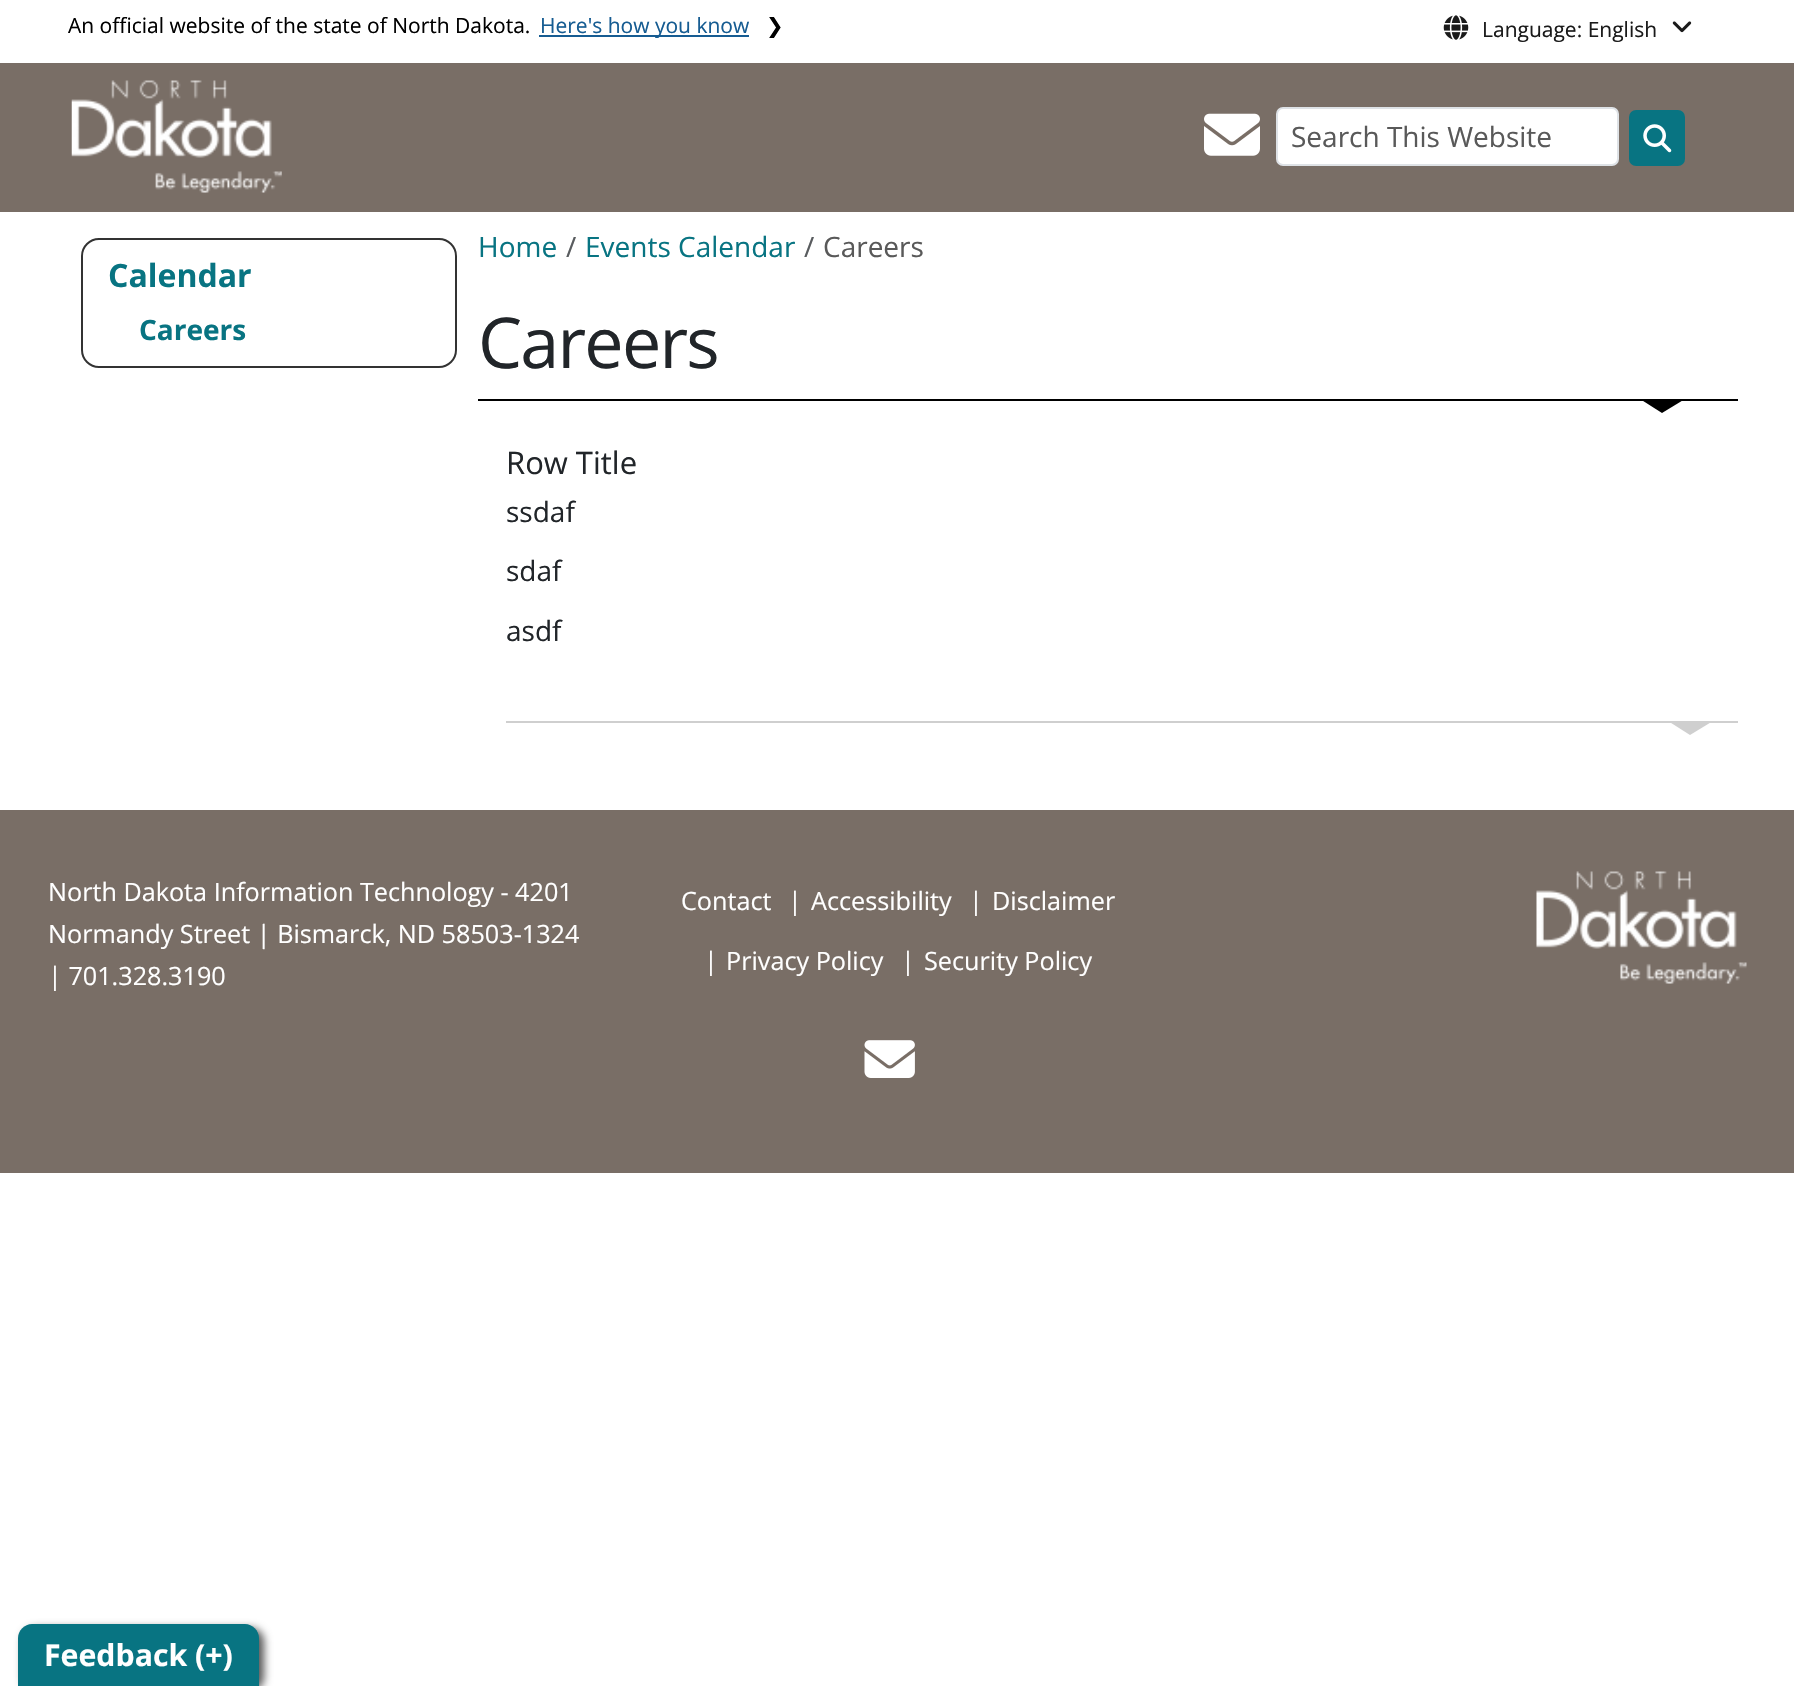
void draw(SkCanvas* canvas) {
	SkPaint paint;
	paint.setAntiAlias(true);
	auto spacedText = [&](const char* s, float x, float y, const SkFont& font, const SkPaint& ink, float letter, float word) {
		std::vector<SkGlyphID> glyphs(font.countText(s, strlen(s), SkTextEncoding::kUTF8));
		std::vector<float> xs(glyphs.size());
		font.textToGlyphs(s, strlen(s), SkTextEncoding::kUTF8, glyphs);
		font.getXPos(glyphs, xs, x);
		float extra = 0;
		for (size_t i = 0; i < glyphs.size(); i++) {
			xs[i] += extra;
			extra += letter + word * (glyphs[i] == font.unicharToGlyph(' '));
		}
		canvas->drawTextBlob(SkTextBlob::MakeFromPosHGlyphs(glyphs, xs, y, font), 0, 0, ink);
	};
	auto svgPath = [&](const char* data, bool evenOdd = false) {
		SkPath result = *SkParsePath::FromSVGString(data);
		if (evenOdd) result.setFillType(SkPathFillType::kEvenOdd);
		return result;
	};
	canvas->clear(0xffffffff);
	SkFont f1(fontMgr->matchFamilyStyle("Open Sans", SkFontStyle::Normal()), 21);
	f1.setSubpixel(true);
	paint.setColor(0xff000000);
	canvas->drawString("An official website of the state of North Dakota.", 68, 33, f1, paint);
	paint.setColor(0xff165c92);
	canvas->drawRect(SkRect::MakeXYWH(539, 35, 210, 2), paint);
	canvas->drawString("Here's how you know", 540, 33, f1, paint);
	SkFont f2(fontMgr->matchFamilyStyle("DejaVu Sans", SkFontStyle::Normal()), 21);
	f2.setSubpixel(true);
	paint.setColor(0xff000000);
	canvas->drawString("❯", 766, 33, f2, paint);
	canvas->drawImageRect(SkImages::DeferredFromEncodedData(SkData::MakeFromFileName("img1.png")), SkRect::MakeXYWH(1443, 15, 26, 25), SkSamplingOptions());
	paint.setColor(0xff1a1a1a);
	canvas->drawString("Language: English", 1482, 37, f1, paint);
	canvas->drawImageRect(SkImages::DeferredFromEncodedData(SkData::MakeFromFileName("img2.png")), SkRect::MakeXYWH(1672, 21, 20, 12), SkSamplingOptions());
	paint.setColor(0xff796e66);
	canvas->drawRect(SkRect::MakeXYWH(0, 63, 1794, 149), paint);
	canvas->drawImageRect(SkImages::DeferredFromEncodedData(SkData::MakeFromFileName("img3.png")), SkRect::MakeXYWH(71, 80, 211, 113), SkSamplingOptions());
	canvas->drawImageRect(SkImages::DeferredFromEncodedData(SkData::MakeFromFileName("img4.png")), SkRect::MakeXYWH(1204, 113, 56, 43), SkSamplingOptions());
	paint.setColor(0xffffffff);
	canvas->drawRoundRect(SkRect::MakeXYWH(1277, 108, 341, 57), 6, 6, paint);
	paint.setStroke(true);
	paint.setStrokeWidth(2);
	paint.setColor(0xffdee2e6);
	canvas->drawRoundRect(SkRect::MakeXYWH(1277, 108, 341, 57), 6, 6, paint);
	SkFont f3(fontMgr->matchFamilyStyle("Open Sans", SkFontStyle::Normal()), 28);
	f3.setSubpixel(true);
	paint.setStroke(false);
	paint.setColor(0xff595959);
	canvas->drawString("Search This Website", 1291, 147, f3, paint);
	paint.setColor(0xff087482);
	canvas->drawRoundRect(SkRect::MakeXYWH(1629, 110, 56, 56), 7, 7, paint);
	canvas->drawImageRect(SkImages::DeferredFromEncodedData(SkData::MakeFromFileName("img5.png")), SkRect::MakeXYWH(1643, 124, 29, 29), SkSamplingOptions());
	paint.setStroke(true);
	paint.setColor(0xff333333);
	canvas->drawRoundRect(SkRect::MakeXYWH(82, 239, 374, 128), 17, 17, paint);
	SkFont f4(fontMgr->matchFamilyStyle("Open Sans", SkFontStyle::Bold()), 32);
	f4.setSubpixel(true);
	paint.setStroke(false);
	paint.setColor(0xff087482);
	canvas->drawString("Calendar", 108, 287, f4, paint);
	SkFont f5(fontMgr->matchFamilyStyle("Open Sans", SkFontStyle::Bold()), 28);
	f5.setSubpixel(true);
	canvas->drawString("Careers", 139, 340, f5, paint);
	canvas->drawString("Home", 478, 257, f3, paint);
	paint.setColor(0xff595c5f);
	canvas->drawString("/", 566, 257, f3, paint);
	paint.setColor(0xff087482);
	canvas->drawString("Events Calendar", 585, 257, f3, paint);
	paint.setColor(0xff595c5f);
	canvas->drawString("/", 804, 257, f3, paint);
	paint.setColor(0xff595959);
	canvas->drawString("Careers", 823, 257, f3, paint);
	paint.setColor(0xff000000);
	canvas->drawRect(SkRect::MakeXYWH(478, 399, 1260, 2), paint);
	SkFont f6(fontMgr->matchFamilyStyle("Open Sans", SkFontStyle::Normal()), 70);
	f6.setSubpixel(true);
	paint.setColor(0xff212529);
	spacedText("Careers", 478, 368, f6, paint, -1.75, 0);
	paint.setColor(0xff000000);
	canvas->drawPath(svgPath("M1640 399H1685L1662 413Z"), paint);
	SkFont f7(fontMgr->matchFamilyStyle("Open Sans", SkFontStyle::Normal()), 31);
	f7.setSubpixel(true);
	paint.setColor(0xff212529);
	canvas->drawString("Row Title", 506, 474, f7, paint);
	canvas->drawString("ssdaf", 506, 522, f3, paint);
	canvas->drawString("sdaf", 506, 581, f3, paint);
	canvas->drawString("asdf", 506, 641, f3, paint);
	paint.setColor(0xffcfcfcf);
	canvas->drawRect(SkRect::MakeXYWH(506, 721, 1232, 2), paint);
	canvas->drawPath(svgPath("M1668 721H1713L1690 735Z"), paint);
	paint.setColor(0xff796e66);
	canvas->drawRect(SkRect::MakeXYWH(0, 810, 1794, 363), paint);
	SkFont f8(fontMgr->matchFamilyStyle("Open Sans", SkFontStyle::Normal()), 25.2);
	f8.setSubpixel(true);
	paint.setColor(0xffffffff);
	canvas->drawString("North Dakota Information Technology - 4201", 48, 901, f8, paint);
	canvas->drawString("Normandy Street | Bismarck, ND 58503-1324", 48, 943, f8, paint);
	canvas->drawString("| 701.328.3190", 48, 985, f8, paint);
	canvas->drawString("Contact", 681, 910, f8, paint);
	canvas->drawString("|", 788, 910, f8, paint);
	canvas->drawString("Accessibility", 811, 910, f8, paint);
	canvas->drawString("|", 969, 910, f8, paint);
	canvas->drawString("Disclaimer", 992, 910, f8, paint);
	canvas->drawString("|", 704, 970, f8, paint);
	canvas->drawString("Privacy Policy", 726, 970, f8, paint);
	canvas->drawString("|", 901, 970, f8, paint);
	canvas->drawString("Security Policy", 924, 970, f8, paint);
	canvas->drawImageRect(SkImages::DeferredFromEncodedData(SkData::MakeFromFileName("img6.png")), SkRect::MakeXYWH(864, 1040, 51, 38), SkSamplingOptions());
	canvas->drawImageRect(SkImages::DeferredFromEncodedData(SkData::MakeFromFileName("img7.png")), SkRect::MakeXYWH(1536, 871, 211, 113), SkSamplingOptions());
	paint.setColor(0xff555555);
	paint.setMaskFilter(SkMaskFilter::MakeBlur(kNormal_SkBlurStyle, 4.5));
	canvas->drawRoundRect(SkRect::MakeXYWH(23, 1628, 241, 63), 14, 14, paint);
	paint.setMaskFilter(nullptr);
	paint.setColor(0xff087482);
	canvas->drawPath(svgPath("M32 1624H245C252.5 1624 259 1630.5 259 1638V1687H18V1638C18 1630.5 24.5 1624 32 1624Z"), paint);
	SkFont f9(fontMgr->matchFamilyStyle("Open Sans", SkFontStyle::Bold()), 30.25);
	f9.setSubpixel(true);
	paint.setColor(0xffffffff);
	canvas->drawString("Feedback (+)", 44, 1666, f9, paint);
}
